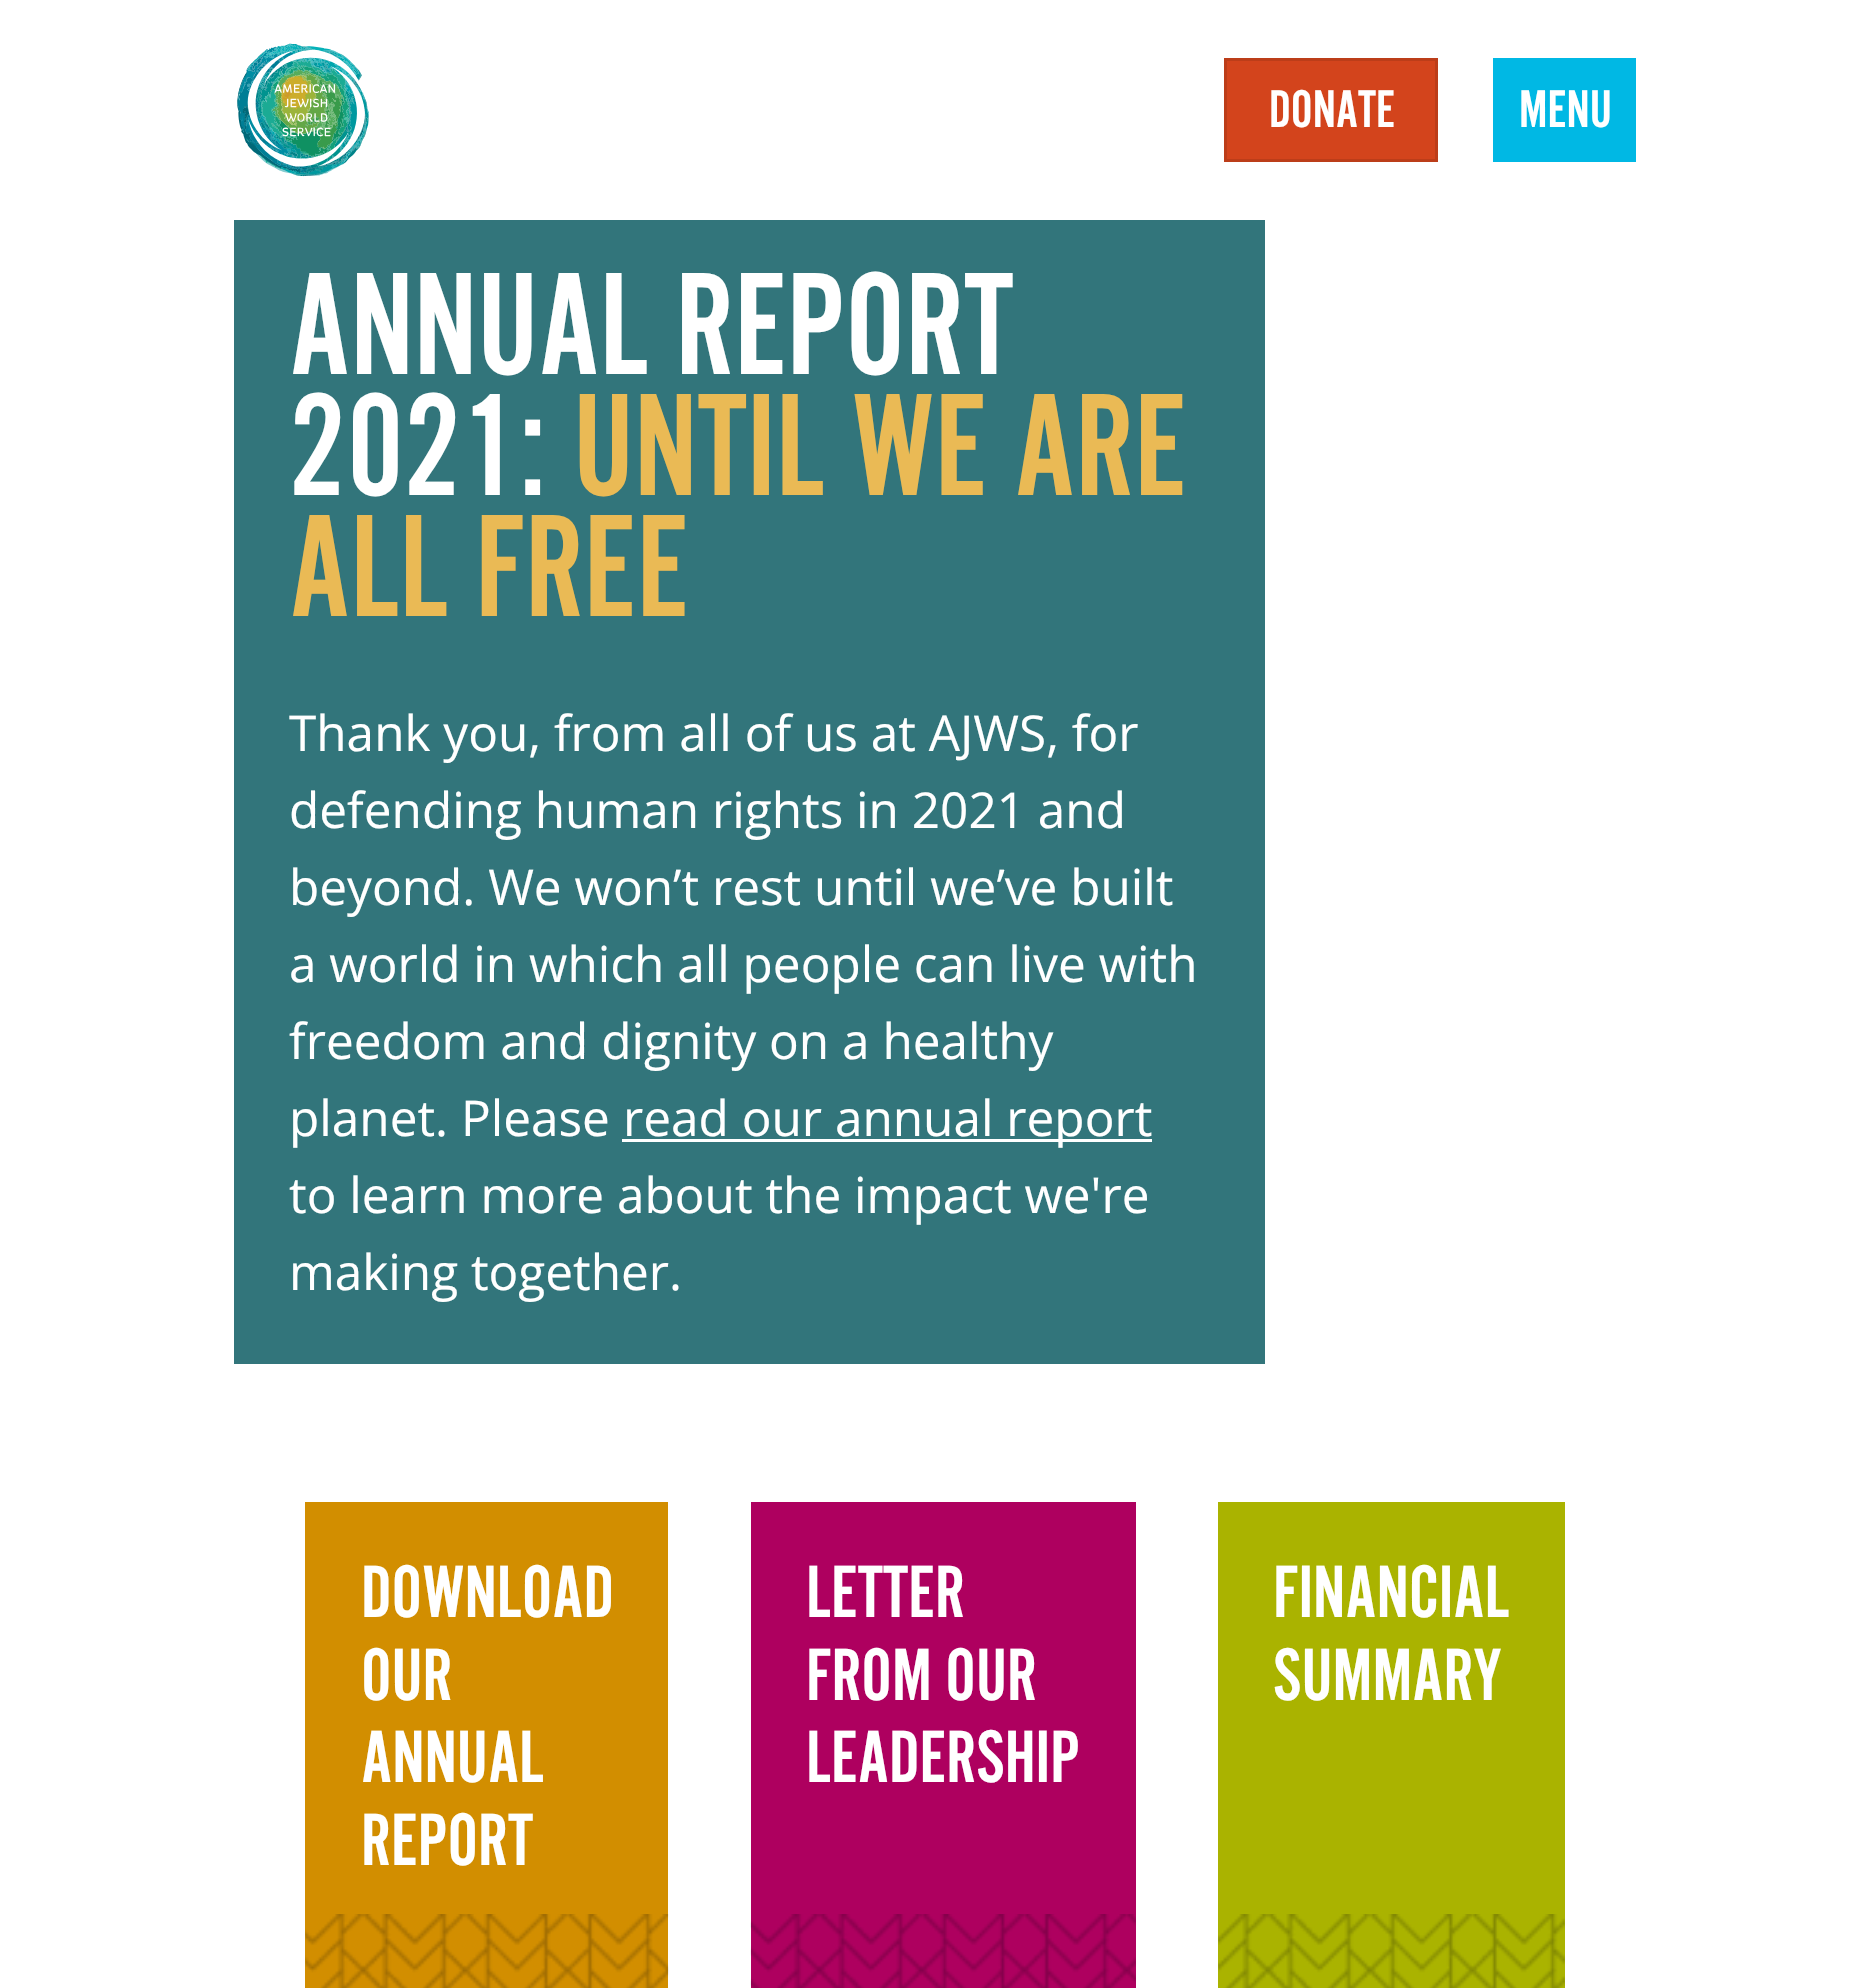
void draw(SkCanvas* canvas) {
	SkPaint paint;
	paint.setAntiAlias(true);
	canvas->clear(0xffffffff);
	canvas->drawImageRect(SkImages::DeferredFromEncodedData(SkData::MakeFromFileName("img1.png")), SkRect::MakeXYWH(237, 43, 132, 134), SkSamplingOptions());
	paint.setColor(0xffd3441c);
	canvas->drawRect(SkRect::MakeXYWH(1225.5, 59.5, 211, 101), paint);
	paint.setStroke(true);
	paint.setStrokeWidth(3);
	paint.setColor(0xffbc3d19);
	canvas->drawRect(SkRect::MakeXYWH(1225.5, 59.5, 211, 101), paint);
	SkFont f1(fontMgr->matchFamilyStyle("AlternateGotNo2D", SkFontStyle::Normal()), 55);
	f1.setSubpixel(true);
	paint.setStroke(false);
	paint.setColor(0xffffffff);
	canvas->drawString("DONATE", 1269, 127, f1, paint);
	paint.setColor(0xff00b8e4);
	canvas->drawRect(SkRect::MakeXYWH(1493, 58, 143, 104), paint);
	paint.setColor(0xffffffff);
	canvas->drawString("MENU", 1519, 127, f1, paint);
	paint.setColor(0xff32757b);
	canvas->drawRect(SkRect::MakeXYWH(234, 220, 1031, 1144), paint);
	SkFont f2(fontMgr->matchFamilyStyle("AlternateGotNo2D", SkFontStyle::Normal()), 151.25);
	f2.setSubpixel(true);
	paint.setColor(0xffffffff);
	canvas->drawString("ANNUAL REPORT", 289, 374, f2, paint);
	canvas->drawString("2021:", 289, 495, f2, paint);
	paint.setColor(0xffeaba55);
	canvas->drawString("UNTIL WE ARE", 573, 495, f2, paint);
	canvas->drawString("ALL FREE", 289, 616, f2, paint);
	SkFont f3(fontMgr->matchFamilyStyle("Open Sans", SkFontStyle::Normal()), 49.5);
	f3.setSubpixel(true);
	paint.setColor(0xffffffff);
	canvas->drawString("Thank you, from all of us at AJWS, for", 289, 751, f3, paint);
	canvas->drawString("defending human rights in 2021 and", 289, 828, f3, paint);
	canvas->drawString("beyond. We won’t rest until we’ve built", 289, 905, f3, paint);
	canvas->drawString("a world in which all people can live with", 289, 982, f3, paint);
	canvas->drawString("freedom and dignity on a healthy", 289, 1059, f3, paint);
	canvas->drawString("planet. Please", 289, 1136, f3, paint);
	canvas->drawRect(SkRect::MakeXYWH(622, 1139, 530, 3), paint);
	canvas->drawString("read our annual report", 623, 1136, f3, paint);
	canvas->drawString("to learn more about the impact we're", 289, 1213, f3, paint);
	canvas->drawString("making together.", 289, 1290, f3, paint);
	paint.setColor(0xffd28e00);
	canvas->drawRect(SkRect::MakeXYWH(305, 1502, 363, 486), paint);
	canvas->drawImageRect(SkImages::DeferredFromEncodedData(SkData::MakeFromFileName("img2.png")), SkRect::MakeXYWH(305, 1914, 364, 74), SkSamplingOptions());
	SkFont f4(fontMgr->matchFamilyStyle("AlternateGotNo2D", SkFontStyle::Normal()), 77);
	f4.setSubpixel(true);
	paint.setColor(0xffffffff);
	canvas->drawString("DOWNLOAD", 361, 1617, f4, paint);
	canvas->drawString("OUR", 361, 1700, f4, paint);
	canvas->drawString("ANNUAL", 361, 1782, f4, paint);
	canvas->drawString("REPORT", 361, 1865, f4, paint);
	paint.setColor(0xffae005f);
	canvas->drawRect(SkRect::MakeXYWH(751, 1502, 385, 486), paint);
	canvas->drawImageRect(SkImages::DeferredFromEncodedData(SkData::MakeFromFileName("img3.png")), SkRect::MakeXYWH(750, 1914, 386, 74), SkSamplingOptions());
	paint.setColor(0xffffffff);
	canvas->drawString("LETTER", 806, 1617, f4, paint);
	canvas->drawString("FROM OUR", 806, 1700, f4, paint);
	canvas->drawString("LEADERSHIP", 806, 1782, f4, paint);
	paint.setColor(0xffaab300);
	canvas->drawRect(SkRect::MakeXYWH(1218, 1502, 347, 486), paint);
	canvas->drawImageRect(SkImages::DeferredFromEncodedData(SkData::MakeFromFileName("img4.png")), SkRect::MakeXYWH(1218, 1914, 347, 74), SkSamplingOptions());
	paint.setColor(0xffffffff);
	canvas->drawString("FINANCIAL", 1273, 1617, f4, paint);
	canvas->drawString("SUMMARY", 1273, 1700, f4, paint);
}
